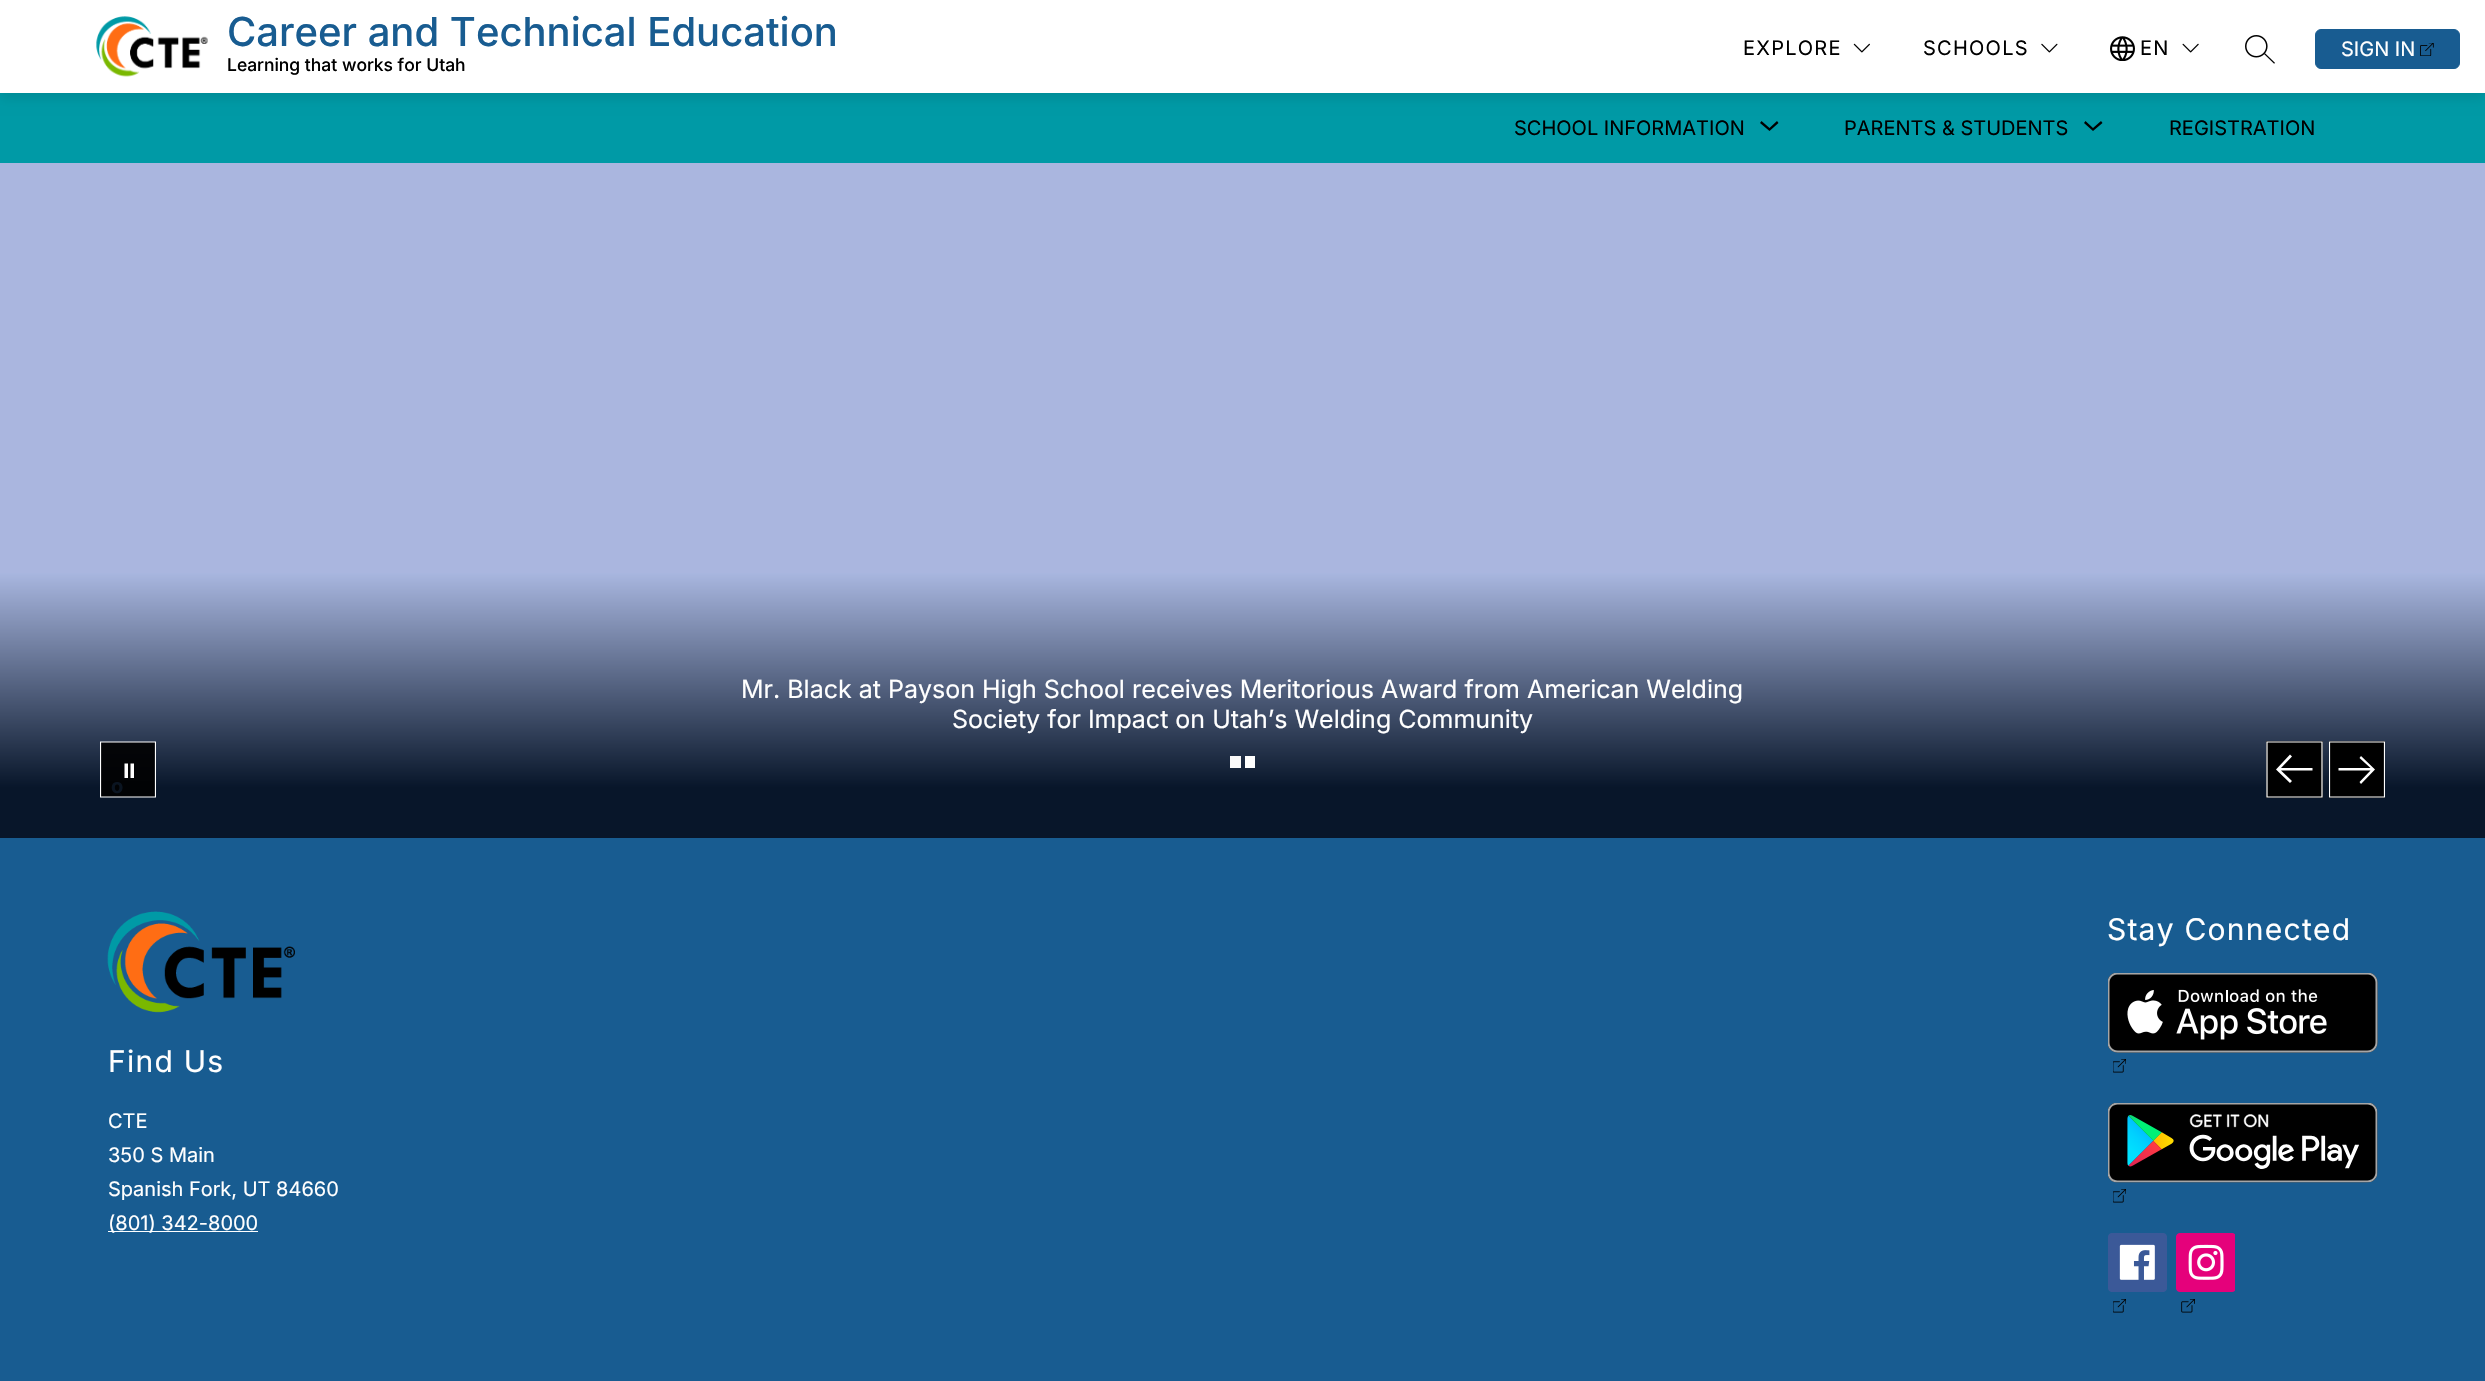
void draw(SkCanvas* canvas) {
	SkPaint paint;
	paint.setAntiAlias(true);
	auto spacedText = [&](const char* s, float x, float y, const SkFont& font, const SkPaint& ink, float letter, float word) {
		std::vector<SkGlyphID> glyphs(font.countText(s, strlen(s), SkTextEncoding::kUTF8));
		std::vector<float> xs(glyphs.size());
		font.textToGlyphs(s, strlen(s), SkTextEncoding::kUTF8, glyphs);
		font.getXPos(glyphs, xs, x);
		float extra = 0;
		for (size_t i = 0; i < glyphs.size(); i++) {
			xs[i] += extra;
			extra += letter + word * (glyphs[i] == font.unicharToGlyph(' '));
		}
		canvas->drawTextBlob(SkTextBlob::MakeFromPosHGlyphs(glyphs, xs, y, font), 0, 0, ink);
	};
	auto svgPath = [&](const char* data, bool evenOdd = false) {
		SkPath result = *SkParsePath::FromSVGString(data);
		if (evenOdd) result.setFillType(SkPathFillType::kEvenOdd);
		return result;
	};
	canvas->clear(0xff185c91);
	paint.setColor(0xff009aa6);
	canvas->drawRect(SkRect::MakeXYWH(0, 93, 2485, 70), paint);
	paint.setColor(0x1a000000);
	paint.setMaskFilter(SkMaskFilter::MakeBlur(kNormal_SkBlurStyle, 6));
	canvas->drawRect(SkRect::MakeXYWH(0, 5, 2485, 93), paint);
	paint.setMaskFilter(nullptr);
	paint.setColor(0xffffffff);
	canvas->drawRect(SkRect::MakeXYWH(0, 0, 2485, 93), paint);
	canvas->drawImageRect(SkImages::DeferredFromEncodedData(SkData::MakeFromFileName("img1.png")), SkRect::MakeXYWH(96, 16, 112, 61), SkSamplingOptions());
	SkFont f1(fontMgr->matchFamilyStyle("Inter", SkFontStyle(500, SkFontStyle::kNormal_Width, SkFontStyle::kUpright_Slant)), 40);
	f1.setSubpixel(true);
	paint.setColor(0xff185c91);
	canvas->drawString("Career and Technical Education", 227, 46, f1, paint);
	SkFont f2(fontMgr->matchFamilyStyle("Inter", SkFontStyle(500, SkFontStyle::kNormal_Width, SkFontStyle::kUpright_Slant)), 17.5);
	f2.setSubpixel(true);
	paint.setColor(0xff000000);
	canvas->drawString("Learning that works for Utah", 227, 71, f2, paint);
	SkFont f3(fontMgr->matchFamilyStyle("Inter", SkFontStyle::Normal()), 20);
	f3.setSubpixel(true);
	spacedText("EXPLORE", 1743, 55, f3, paint, 1.25, 0);
	canvas->drawImageRect(SkImages::DeferredFromEncodedData(SkData::MakeFromFileName("img2.png")), SkRect::MakeXYWH(1853, 43, 17, 10), SkSamplingOptions());
	spacedText("SCHOOLS", 1923, 55, f3, paint, 1.25, 0);
	canvas->drawImageRect(SkImages::DeferredFromEncodedData(SkData::MakeFromFileName("img3.png")), SkRect::MakeXYWH(2041, 43, 17, 10), SkSamplingOptions());
	canvas->drawImageRect(SkImages::DeferredFromEncodedData(SkData::MakeFromFileName("img4.png")), SkRect::MakeXYWH(2110, 36, 25, 25), SkSamplingOptions());
	spacedText("EN", 2140, 55, f3, paint, 1.25, 0);
	canvas->drawImageRect(SkImages::DeferredFromEncodedData(SkData::MakeFromFileName("img5.png")), SkRect::MakeXYWH(2182, 43, 17, 10), SkSamplingOptions());
	canvas->drawImageRect(SkImages::DeferredFromEncodedData(SkData::MakeFromFileName("img6.png")), SkRect::MakeXYWH(2245, 35, 30, 29), SkSamplingOptions());
	paint.setColor(0xff185c91);
	canvas->drawRoundRect(SkRect::MakeXYWH(2315.5, 29.5, 144, 39), 5.5, 5.5, paint);
	paint.setStroke(true);
	paint.setStrokeWidth(1);
	canvas->drawRoundRect(SkRect::MakeXYWH(2315.5, 29.5, 144, 39), 5.5, 5.5, paint);
	paint.setStroke(false);
	paint.setColor(0xffffffff);
	canvas->drawString("SIGN IN", 2341, 56, f3, paint);
	canvas->drawImageRect(SkImages::DeferredFromEncodedData(SkData::MakeFromFileName("img7.png")), SkRect::MakeXYWH(2420, 43, 14, 13), SkSamplingOptions());
	paint.setColor(0xff000000);
	canvas->drawString("SCHOOL INFORMATION", 1514, 135, f3, paint);
	canvas->drawPath(svgPath("M1777 121L1769.5 128L1761.5 121L1760 123L1769.5 131L1778.5 123Z", true), paint);
	canvas->drawString("PARENTS & STUDENTS", 1844, 135, f3, paint);
	canvas->drawPath(svgPath("M2101 121L2093 128L2085.5 121L2084 123L2093 131L2102.5 123Z", true), paint);
	canvas->drawString("REGISTRATION", 2169, 135, f3, paint);
	paint.setColor(0xffaab6df);
	canvas->drawRect(SkRect::MakeXYWH(0, 163, 2485, 410), paint);
	{
		const SkColor colors[] = {0xffa9b7e0, 0xff08162a};
		const float stops[] = {0, 0.81};
		const SkPoint ends[] = {{1243, 572}, {1243, 838}};
		paint.setShader(SkGradientShader::MakeLinear(ends, colors, stops, 2, SkTileMode::kClamp));
		paint.setAlpha(255);
	}
	canvas->drawRect(SkRect::MakeXYWH(0, 573, 2485, 265), paint);
	{
		const SkColor colors[] = {0xff111216, 0xff010204};
		const float stops[] = {0, 0.81};
		const SkPoint ends[] = {{1243, 572}, {1243, 838}};
		paint.setShader(SkGradientShader::MakeLinear(ends, colors, stops, 2, SkTileMode::kClamp));
		paint.setAlpha(255);
	}
	canvas->drawRect(SkRect::MakeXYWH(101, 742, 54, 55), paint);
	SkFont f4(fontMgr->matchFamilyStyle("Inter", SkFontStyle::Normal()), 25);
	f4.setSubpixel(true);
	paint.setShader(nullptr);
	paint.setColor(0xffffffff);
	canvas->drawString("Mr. Black at Payson High School receives Meritorious Award from American Welding", 741, 698, f4, paint);
	canvas->drawString("Society for Impact on Utah’s Welding Community", 952, 728, f4, paint);
	paint.setColor(0xfff9f9f9);
	canvas->drawRect(SkRect::MakeXYWH(1230, 756, 11, 12), paint);
	paint.setColor(0xffffffff);
	canvas->drawRect(SkRect::MakeXYWH(1245, 756, 10, 12), paint);
	canvas->save();
	canvas->clipRect(SkRect::MakeXYWH(100, 741, 56, 57));
	paint.setStroke(true);
	paint.setStrokeWidth(1.2);
	canvas->drawPath(svgPath("M100.5 742H155.5V797H100.5Z"), paint);
	canvas->restore();
	paint.setStroke(false);
	canvas->drawPath(svgPath("M128 763.5H124.5V778H128ZM134 763.5H130.5V778H134Z", true), paint);
	paint.setColor(0xff000000);
	canvas->drawRect(SkRect::MakeXYWH(2266, 741, 57, 57), paint);
	paint.setStroke(true);
	paint.setColor(0xffffffff);
	canvas->drawPath(svgPath("M2322 797H2267V742H2322Z"), paint);
	paint.setStroke(false);
	canvas->drawPath(svgPath("M2290 783L2276 769.5L2290 754.5L2292 756.5L2281 768H2312.5V770.5H2281L2292 781Z"), paint);
	paint.setColor(0xff000000);
	canvas->drawRect(SkRect::MakeXYWH(2329, 741, 56, 57), paint);
	canvas->save();
	canvas->clipRect(SkRect::MakeXYWH(2329, 741, 56, 57));
	paint.setStroke(true);
	paint.setColor(0xffffffff);
	canvas->drawPath(svgPath("M2329.5 742H2384.5V797H2329.5Z"), paint);
	canvas->restore();
	paint.setStroke(false);
	canvas->drawPath(svgPath("M2361 756L2375 769.5L2361 784L2359.5 782L2370.5 770.5H2338.5V768H2370.5L2359.5 758Z"), paint);
	SkFont f5(fontMgr->matchFamilyStyle("Inter", SkFontStyle::Bold()), 20);
	f5.setSubpixel(true);
	paint.setColor(0xff0a1421);
	canvas->drawString("o", 111, 793, f5, paint);
	SkFont f6(fontMgr->matchFamilyStyle("Inter", SkFontStyle::Normal()), 30);
	f6.setSubpixel(true);
	paint.setColor(0xffffffff);
	spacedText("Stay Connected", 2107, 940, f6, paint, 1.25, 0);
	canvas->drawImageRect(SkImages::DeferredFromEncodedData(SkData::MakeFromFileName("img8.png")), SkRect::MakeXYWH(2108, 973, 270, 80), SkSamplingOptions());
	canvas->drawImageRect(SkImages::DeferredFromEncodedData(SkData::MakeFromFileName("img9.png")), SkRect::MakeXYWH(2113, 1059, 13, 14), SkSamplingOptions());
	canvas->drawImageRect(SkImages::DeferredFromEncodedData(SkData::MakeFromFileName("img10.png")), SkRect::MakeXYWH(2108, 1103, 270, 80), SkSamplingOptions());
	canvas->drawImageRect(SkImages::DeferredFromEncodedData(SkData::MakeFromFileName("img9.png")), SkRect::MakeXYWH(2113, 1189, 13, 14), SkSamplingOptions());
	canvas->drawImageRect(SkImages::DeferredFromEncodedData(SkData::MakeFromFileName("img11.png")), SkRect::MakeXYWH(2108, 1233, 59, 59), SkSamplingOptions());
	canvas->drawImageRect(SkImages::DeferredFromEncodedData(SkData::MakeFromFileName("img9.png")), SkRect::MakeXYWH(2113, 1299, 13, 14), SkSamplingOptions());
	canvas->drawImageRect(SkImages::DeferredFromEncodedData(SkData::MakeFromFileName("img12.png")), SkRect::MakeXYWH(2176, 1233, 59, 59), SkSamplingOptions());
	canvas->drawImageRect(SkImages::DeferredFromEncodedData(SkData::MakeFromFileName("img13.png")), SkRect::MakeXYWH(2181, 1299, 14, 14), SkSamplingOptions());
	canvas->drawImageRect(SkImages::DeferredFromEncodedData(SkData::MakeFromFileName("img14.png")), SkRect::MakeXYWH(107, 911, 188, 102), SkSamplingOptions());
	spacedText("Find Us", 108, 1072, f6, paint, 1.25, 0);
	canvas->drawString("CTE", 108, 1128, f3, paint);
	canvas->drawString("350 S Main", 108, 1162, f3, paint);
	canvas->drawString("Spanish Fork, UT 84660", 108, 1196, f3, paint);
	canvas->drawRect(SkRect::MakeXYWH(108, 1231, 150, 1), paint);
	canvas->drawString("(801) 342-8000", 108, 1230, f3, paint);
}
